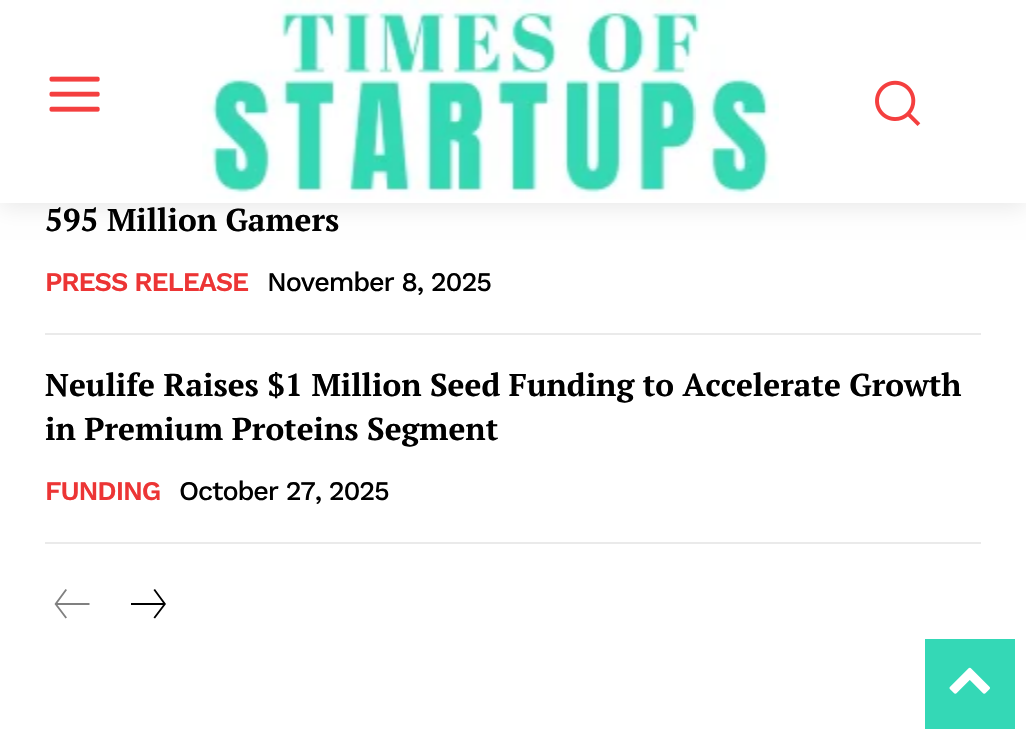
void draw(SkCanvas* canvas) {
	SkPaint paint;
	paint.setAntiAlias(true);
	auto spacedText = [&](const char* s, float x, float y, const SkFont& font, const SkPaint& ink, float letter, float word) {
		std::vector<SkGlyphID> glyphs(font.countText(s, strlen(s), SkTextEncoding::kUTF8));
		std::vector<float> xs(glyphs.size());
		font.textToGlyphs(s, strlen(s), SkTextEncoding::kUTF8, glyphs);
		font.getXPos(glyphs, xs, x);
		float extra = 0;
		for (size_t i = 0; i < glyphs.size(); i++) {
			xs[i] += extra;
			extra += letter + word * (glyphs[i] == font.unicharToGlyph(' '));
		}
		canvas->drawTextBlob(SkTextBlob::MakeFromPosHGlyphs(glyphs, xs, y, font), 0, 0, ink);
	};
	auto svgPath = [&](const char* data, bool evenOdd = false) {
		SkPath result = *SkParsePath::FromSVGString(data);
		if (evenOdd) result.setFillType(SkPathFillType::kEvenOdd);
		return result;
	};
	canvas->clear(0xffffffff);
	canvas->drawImageRect(SkImages::DeferredFromEncodedData(SkData::MakeFromFileName("img1.png")), SkRect::MakeXYWH(49, 76, 51, 36), SkSamplingOptions());
	canvas->drawImageRect(SkImages::DeferredFromEncodedData(SkData::MakeFromFileName("img2.png")), SkRect::MakeXYWH(202, 0, 577, 199), SkSamplingOptions());
	canvas->drawImageRect(SkImages::DeferredFromEncodedData(SkData::MakeFromFileName("img3.png")), SkRect::MakeXYWH(875, 80, 46, 46), SkSamplingOptions());
	canvas->save();
	canvas->clipPath(svgPath("M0 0H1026V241H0ZM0 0H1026V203H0Z", true), true);
	paint.setColor(0x17000000);
	paint.setMaskFilter(SkMaskFilter::MakeBlur(kNormal_SkBlurStyle, 11));
	canvas->drawRect(SkRect::MakeXYWH(0, 5, 1026, 202), paint);
	paint.setMaskFilter(nullptr);
	canvas->restore();
	paint.setColor(0xffeaeaea);
	canvas->drawRect(SkRect::MakeXYWH(45, 333, 936, 2), paint);
	SkFont f1(fontMgr->matchFamilyStyle("PT Serif", SkFontStyle::Bold()), 31.5);
	f1.setSubpixel(true);
	paint.setColor(0xff000000);
	canvas->drawString("595 Million Gamers", 45, 231, f1, paint);
	SkFont f2(fontMgr->matchFamilyStyle("Work Sans", SkFontStyle(600, SkFontStyle::kNormal_Width, SkFontStyle::kUpright_Slant)), 27);
	f2.setSubpixel(true);
	paint.setColor(0xffec3535);
	spacedText("PRESS RELEASE", 45, 291, f2, paint, -1.1, 0);
	SkFont f3(fontMgr->matchFamilyStyle("Work Sans", SkFontStyle(500, SkFontStyle::kNormal_Width, SkFontStyle::kUpright_Slant)), 27);
	f3.setSubpixel(true);
	paint.setColor(0xff000000);
	spacedText("November 8, 2025", 267, 291, f3, paint, -1.1, 0);
	paint.setColor(0xffeaeaea);
	canvas->drawRect(SkRect::MakeXYWH(45, 542, 936, 2), paint);
	paint.setColor(0xff000000);
	canvas->drawString("Neulife Raises $1 Million Seed Funding to Accelerate Growth", 45, 396, f1, paint);
	canvas->drawString("in Premium Proteins Segment", 45, 440, f1, paint);
	paint.setColor(0xffec3535);
	spacedText("FUNDING", 45, 500, f2, paint, -1.1, 0);
	paint.setColor(0xff000000);
	spacedText("October 27, 2025", 179, 500, f3, paint, -1.1, 0);
	paint.setColor(0xff808080);
	canvas->drawPath(svgPath("M67 617.5L57.5 605H89.5V603H57.5L67 590L65.5 589L54.5 604L65.5 618.5Z"), paint);
	paint.setColor(0xff000000);
	canvas->drawPath(svgPath("M153.5 617.5L155 618.5L166 604L155 589L153.5 590L163 603H131V605H163Z"), paint);
	paint.setColor(0xff34d8b6);
	canvas->drawRect(SkRect::MakeXYWH(925, 639, 90, 90), paint);
	canvas->drawImageRect(SkImages::DeferredFromEncodedData(SkData::MakeFromFileName("img4.png")), SkRect::MakeXYWH(949, 667, 41, 27), SkSamplingOptions());
}
